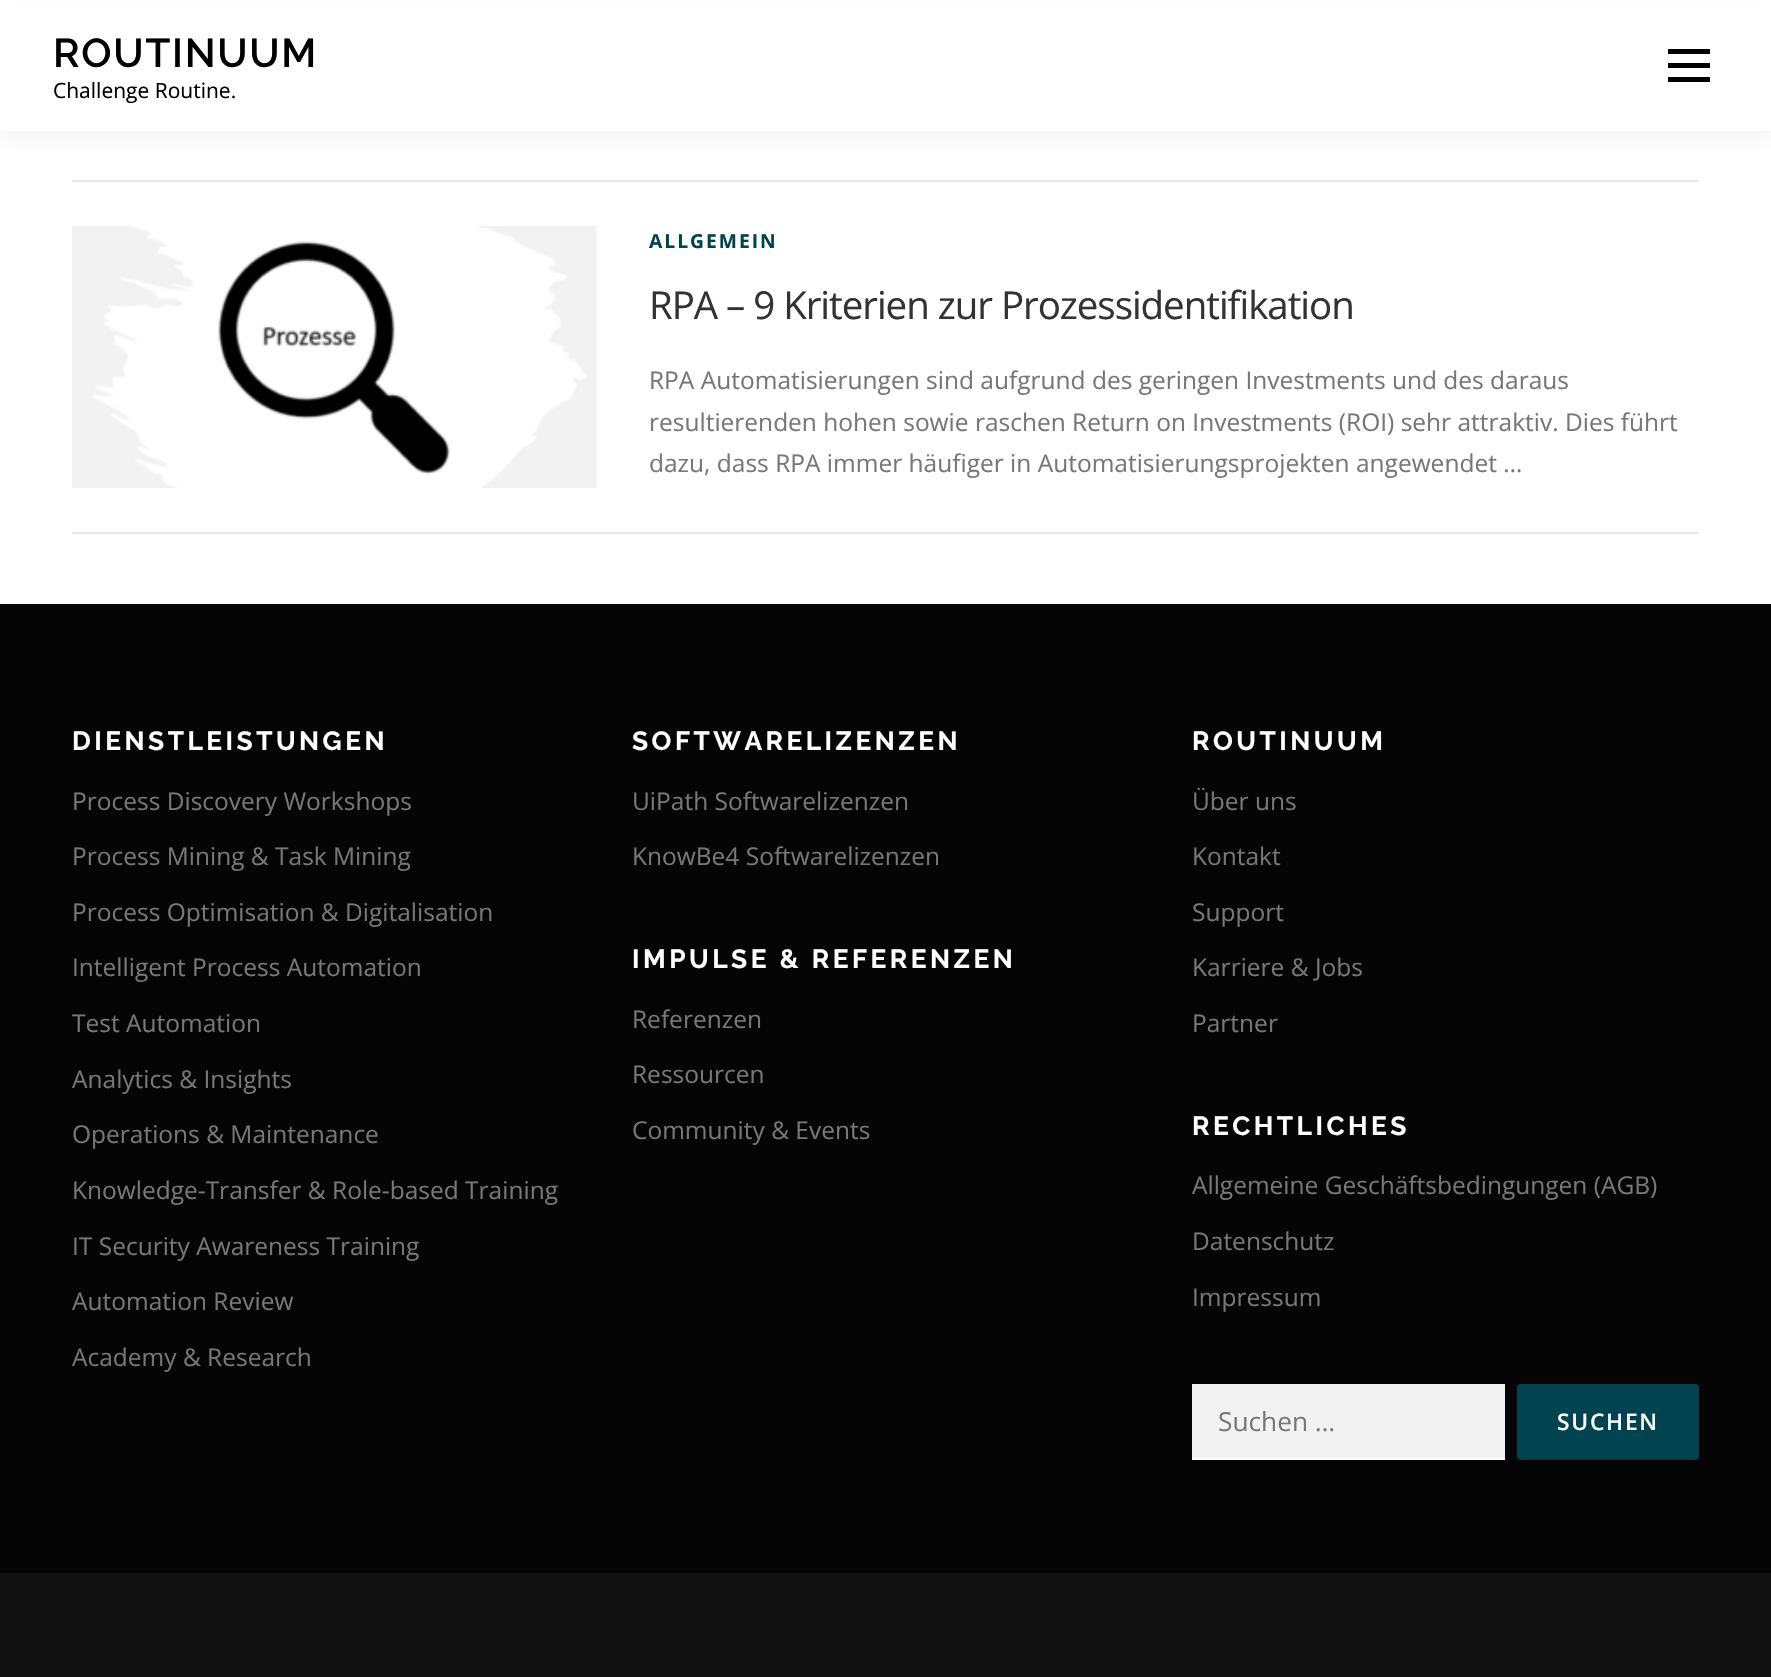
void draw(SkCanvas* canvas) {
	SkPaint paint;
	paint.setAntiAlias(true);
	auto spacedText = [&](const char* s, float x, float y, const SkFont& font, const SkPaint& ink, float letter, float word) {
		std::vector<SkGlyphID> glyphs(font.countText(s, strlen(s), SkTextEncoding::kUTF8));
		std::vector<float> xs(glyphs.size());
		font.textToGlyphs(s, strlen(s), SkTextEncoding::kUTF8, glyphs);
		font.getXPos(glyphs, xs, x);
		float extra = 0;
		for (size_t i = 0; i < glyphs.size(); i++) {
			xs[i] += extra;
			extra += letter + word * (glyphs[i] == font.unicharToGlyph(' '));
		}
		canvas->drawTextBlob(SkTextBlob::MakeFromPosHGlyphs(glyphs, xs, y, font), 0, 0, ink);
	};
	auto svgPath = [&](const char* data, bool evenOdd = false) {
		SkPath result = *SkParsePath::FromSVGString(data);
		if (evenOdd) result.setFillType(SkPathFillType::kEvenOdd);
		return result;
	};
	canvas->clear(0xffffffff);
	paint.setColor(0x0f323232);
	paint.setMaskFilter(SkMaskFilter::MakeBlur(kNormal_SkBlurStyle, 9));
	canvas->drawRect(SkRect::MakeXYWH(0, 9, 1771, 131), paint);
	paint.setMaskFilter(nullptr);
	paint.setColor(0xffffffff);
	canvas->drawRect(SkRect::MakeXYWH(0, 2, 1771, 129), paint);
	SkFont f1(fontMgr->matchFamilyStyle("Raleway", SkFontStyle(600, SkFontStyle::kNormal_Width, SkFontStyle::kUpright_Slant)), 40.25);
	f1.setSubpixel(true);
	paint.setColor(0xff000000);
	spacedText("ROUTINUUM", 53, 67, f1, paint, 1.75, 0);
	SkFont f2(fontMgr->matchFamilyStyle("Open Sans", SkFontStyle::Normal()), 21);
	f2.setSubpixel(true);
	canvas->drawString("Challenge Routine.", 53, 98, f2, paint);
	canvas->drawRect(SkRect::MakeXYWH(1668, 63, 42, 5), paint);
	canvas->drawRect(SkRect::MakeXYWH(1668, 49, 42, 5), paint);
	canvas->drawRect(SkRect::MakeXYWH(1668, 77, 42, 5), paint);
	paint.setColor(0xffe9e9e9);
	canvas->drawRect(SkRect::MakeXYWH(72, 180, 1627, 2), paint);
	canvas->drawRect(SkRect::MakeXYWH(72, 532, 1627, 2), paint);
	canvas->drawImageRect(SkImages::DeferredFromEncodedData(SkData::MakeFromFileName("img1.png")), SkRect::MakeXYWH(72, 226, 525, 262), SkSamplingOptions());
	SkFont f3(fontMgr->matchFamilyStyle("Open Sans", SkFontStyle::Bold()), 19.25);
	f3.setSubpixel(true);
	paint.setColor(0xff014350);
	spacedText("ALLGEMEIN", 649, 248, f3, paint, 2, 0);
	SkFont f4(fontMgr->matchFamilyStyle("Open Sans", SkFontStyle::Normal()), 38.5);
	f4.setSubpixel(true);
	paint.setColor(0xff333333);
	spacedText("RPA – 9 Kriterien zur Prozessidentifikation", 649, 319, f4, paint, -1.05, 0);
	SkFont f5(fontMgr->matchFamilyStyle("Open Sans", SkFontStyle::Normal()), 24.5);
	f5.setSubpixel(true);
	paint.setColor(0xff777777);
	canvas->drawString("RPA Automatisierungen sind aufgrund des geringen Investments und des daraus", 649, 389, f5, paint);
	canvas->drawString("resultierenden hohen sowie raschen Return on Investments (ROI) sehr attraktiv. Dies führt", 649, 431, f5, paint);
	canvas->drawString("dazu, dass RPA immer häufiger in Automatisierungsprojekten angewendet …", 649, 472, f5, paint);
	paint.setColor(0xff111111);
	canvas->drawRect(SkRect::MakeXYWH(0, 1573, 1771, 104), paint);
	paint.setColor(0xff050505);
	canvas->drawRect(SkRect::MakeXYWH(0, 604, 1771, 969), paint);
	SkFont f6(fontMgr->matchFamilyStyle("Raleway", SkFontStyle::Bold()), 26.25);
	f6.setSubpixel(true);
	paint.setColor(0xffffffff);
	spacedText("DIENSTLEISTUNGEN", 72, 750, f6, paint, 3.5, 0);
	paint.setColor(0xff777777);
	canvas->drawString("Process Discovery Workshops", 72, 810, f5, paint);
	canvas->drawString("Process Mining & Task Mining", 72, 865, f5, paint);
	canvas->drawString("Process Optimisation & Digitalisation", 72, 921, f5, paint);
	canvas->drawString("Intelligent Process Automation", 72, 976, f5, paint);
	canvas->drawString("Test Automation", 72, 1032, f5, paint);
	canvas->drawString("Analytics & Insights", 72, 1088, f5, paint);
	canvas->drawString("Operations & Maintenance", 72, 1143, f5, paint);
	canvas->drawString("Knowledge-Transfer & Role-based Training", 72, 1199, f5, paint);
	canvas->drawString("IT Security Awareness Training", 72, 1255, f5, paint);
	canvas->drawString("Automation Review", 72, 1310, f5, paint);
	canvas->drawString("Academy & Research", 72, 1366, f5, paint);
	paint.setColor(0xffffffff);
	spacedText("SOFTWARELIZENZEN", 632, 750, f6, paint, 3.5, 0);
	paint.setColor(0xff777777);
	canvas->drawString("UiPath Softwarelizenzen", 632, 810, f5, paint);
	canvas->drawString("KnowBe4 Softwarelizenzen", 632, 865, f5, paint);
	paint.setColor(0xffffffff);
	spacedText("IMPULSE & REFERENZEN", 632, 968, f6, paint, 3.5, 0);
	paint.setColor(0xff777777);
	canvas->drawString("Referenzen", 632, 1028, f5, paint);
	canvas->drawString("Ressourcen", 632, 1083, f5, paint);
	canvas->drawString("Community & Events", 632, 1139, f5, paint);
	paint.setColor(0xffffffff);
	spacedText("ROUTINUUM", 1192, 750, f6, paint, 3.5, 0);
	paint.setColor(0xff777777);
	canvas->drawString("Über uns", 1192, 810, f5, paint);
	canvas->drawString("Kontakt", 1192, 865, f5, paint);
	canvas->drawString("Support", 1192, 921, f5, paint);
	canvas->drawString("Karriere & Jobs", 1192, 976, f5, paint);
	canvas->drawString("Partner", 1192, 1032, f5, paint);
	paint.setColor(0xffffffff);
	spacedText("RECHTLICHES", 1192, 1135, f6, paint, 3.5, 0);
	paint.setColor(0xff777777);
	canvas->drawString("Allgemeine Geschäftsbedingungen (AGB)", 1192, 1194, f5, paint);
	canvas->drawString("Datenschutz", 1192, 1250, f5, paint);
	canvas->drawString("Impressum", 1192, 1306, f5, paint);
	paint.setColor(0xfff2f2f2);
	canvas->drawRect(SkRect::MakeXYWH(1192, 1384, 313, 74), paint);
	paint.setColor(0xffffffff);
	canvas->drawRect(SkRect::MakeXYWH(1192, 1458, 313, 2), paint);
	SkFont f7(fontMgr->matchFamilyStyle("Open Sans", SkFontStyle::Normal()), 26.25);
	f7.setSubpixel(true);
	paint.setColor(0xff777777);
	canvas->drawString("Suchen …", 1218, 1431, f7, paint);
	paint.setColor(0xff014350);
	canvas->drawRoundRect(SkRect::MakeXYWH(1517, 1384, 182, 76), 4, 4, paint);
	paint.setColor(0x1a000000);
	canvas->drawPath(svgPath("M1517 1454V1456C1517 1458 1519 1460 1521 1460H1695C1697 1460 1699 1458 1699 1456V1454C1699 1456 1698 1458 1696 1458H1521C1519 1458 1517 1456 1517 1454Z"), paint);
	SkFont f8(fontMgr->matchFamilyStyle("Open Sans", SkFontStyle(600, SkFontStyle::kNormal_Width, SkFontStyle::kUpright_Slant)), 22.75);
	f8.setSubpixel(true);
	paint.setColor(0xffffffff);
	spacedText("SUCHEN", 1557, 1430, f8, paint, 1.75, 0);
}
